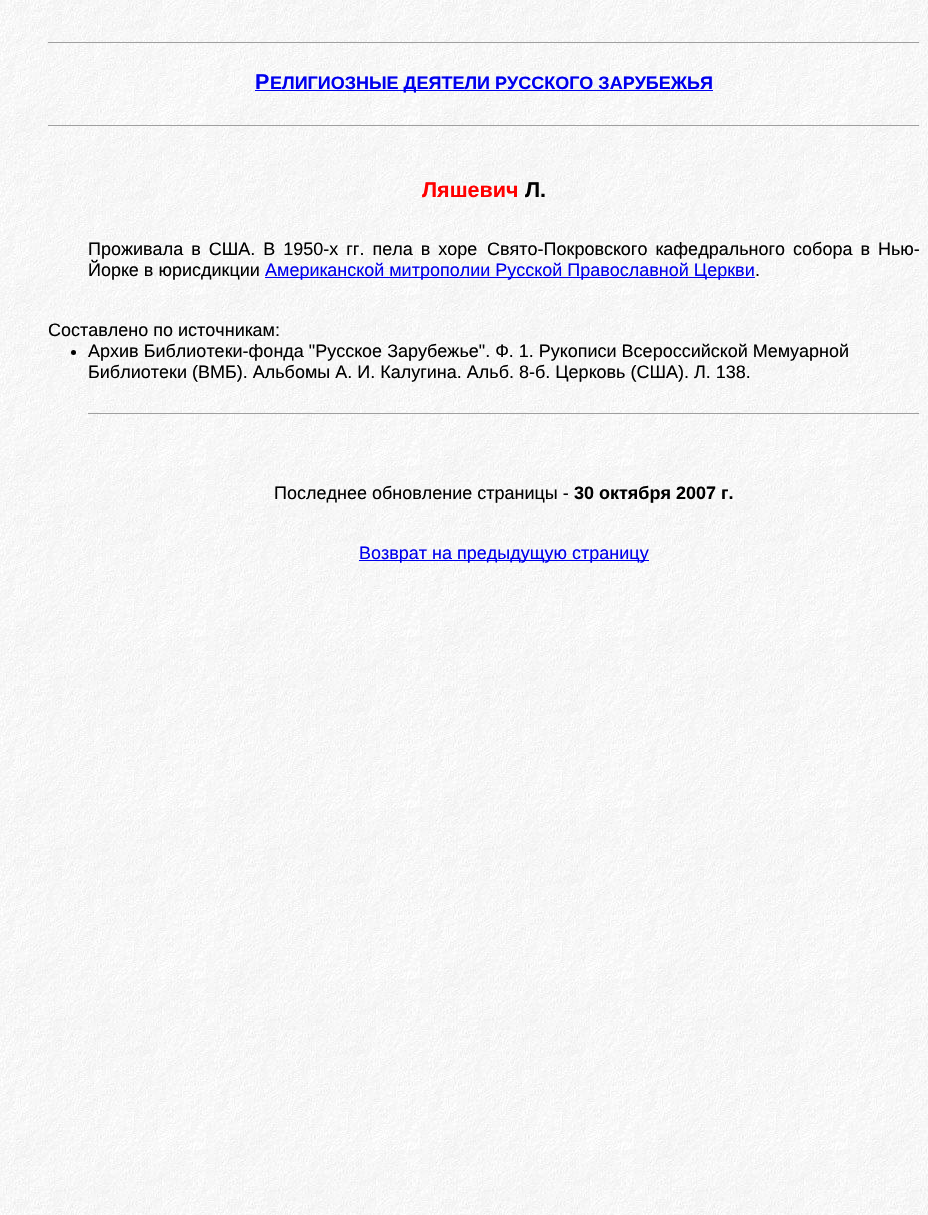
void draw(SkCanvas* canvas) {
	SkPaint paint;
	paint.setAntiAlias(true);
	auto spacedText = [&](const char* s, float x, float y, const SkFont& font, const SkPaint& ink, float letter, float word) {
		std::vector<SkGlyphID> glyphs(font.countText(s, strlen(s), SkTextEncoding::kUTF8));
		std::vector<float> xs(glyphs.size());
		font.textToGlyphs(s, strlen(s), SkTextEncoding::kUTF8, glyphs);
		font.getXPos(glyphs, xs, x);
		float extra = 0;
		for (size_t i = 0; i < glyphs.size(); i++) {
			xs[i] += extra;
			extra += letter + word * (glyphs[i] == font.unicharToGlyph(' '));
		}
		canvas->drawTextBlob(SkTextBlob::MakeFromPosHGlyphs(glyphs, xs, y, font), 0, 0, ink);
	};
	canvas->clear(0xffffffff);
	canvas->drawImageRect(SkImages::DeferredFromEncodedData(SkData::MakeFromFileName("img1.png")), SkRect::MakeXYWH(0, 0, 928, 1215), SkSamplingOptions());
	paint.setColor(0xff9f9f9f);
	canvas->drawRect(SkRect::MakeXYWH(48, 42, 872, 1), paint);
	paint.setColor(0xffeeeeee);
	canvas->drawRect(SkRect::MakeXYWH(919, 42, 1, 1), paint);
	SkFont f1(fontMgr->matchFamilyStyle("Liberation Sans", SkFontStyle::Bold()), 21.5);
	f1.setSubpixel(true);
	paint.setColor(0xff0000ee);
	canvas->drawString("Р", 255, 89, f1, paint);
	canvas->drawRect(SkRect::MakeXYWH(255, 90, 458, 1), paint);
	SkFont f2(fontMgr->matchFamilyStyle("Liberation Sans", SkFontStyle::Bold()), 18);
	f2.setSubpixel(true);
	canvas->drawString("ЕЛИГИОЗНЫЕ ДЕЯТЕЛИ РУССКОГО ЗАРУБЕЖЬЯ", 270, 89, f2, paint);
	paint.setColor(0xff9f9f9f);
	canvas->drawRect(SkRect::MakeXYWH(48, 125, 872, 1), paint);
	paint.setColor(0xffeeeeee);
	canvas->drawRect(SkRect::MakeXYWH(919, 125, 1, 1), paint);
	paint.setColor(0xffff0000);
	canvas->drawString("Ляшевич", 422, 197, f1, paint);
	paint.setColor(0xff000000);
	canvas->drawString("Л.", 525, 197, f1, paint);
	SkFont f3(fontMgr->matchFamilyStyle("Liberation Sans", SkFontStyle::Normal()), 18);
	f3.setSubpixel(true);
	spacedText("Проживала в США. В 1950-х гг. пела в хоре", 88, 255, f3, paint, 0, 3);
	spacedText("Свято-Покровского кафедрального собора в Нью-", 487, 255, f3, paint, 0, 3);
	canvas->drawString("Йорке в юрисдикции", 88, 276, f3, paint);
	paint.setColor(0xff0000ee);
	canvas->drawRect(SkRect::MakeXYWH(265, 277, 490, 1), paint);
	canvas->drawString("Американской митрополии Русской Православной Церкви", 265, 276, f3, paint);
	paint.setColor(0xff000000);
	canvas->drawString(".", 755, 276, f3, paint);
	canvas->drawString("Составлено по источникам:", 48, 336, f3, paint);
	canvas->drawCircle(73.5, 352.5, 2.5, paint);
	canvas->drawString("Архив Библиотеки-фонда \"Русское Зарубежье\". Ф. 1. Рукописи Всероссийской Мемуарной", 88, 357, f3, paint);
	canvas->drawString("Библиотеки (ВМБ). Альбомы А. И. Калугина. Альб. 8-б. Церковь (США). Л. 138.", 88, 378, f3, paint);
	paint.setColor(0xff9f9f9f);
	canvas->drawRect(SkRect::MakeXYWH(88, 413, 832, 1), paint);
	paint.setColor(0xffeeeeee);
	canvas->drawRect(SkRect::MakeXYWH(919, 413, 1, 1), paint);
	paint.setColor(0xff000000);
	canvas->drawString("Последнее обновление страницы -", 274, 499, f3, paint);
	canvas->drawString("30 октября 2007 г.", 574, 499, f2, paint);
	paint.setColor(0xff0000ee);
	canvas->drawRect(SkRect::MakeXYWH(359, 560, 290, 1), paint);
	canvas->drawString("Возврат на предыдущую страницу", 359, 559, f3, paint);
}
